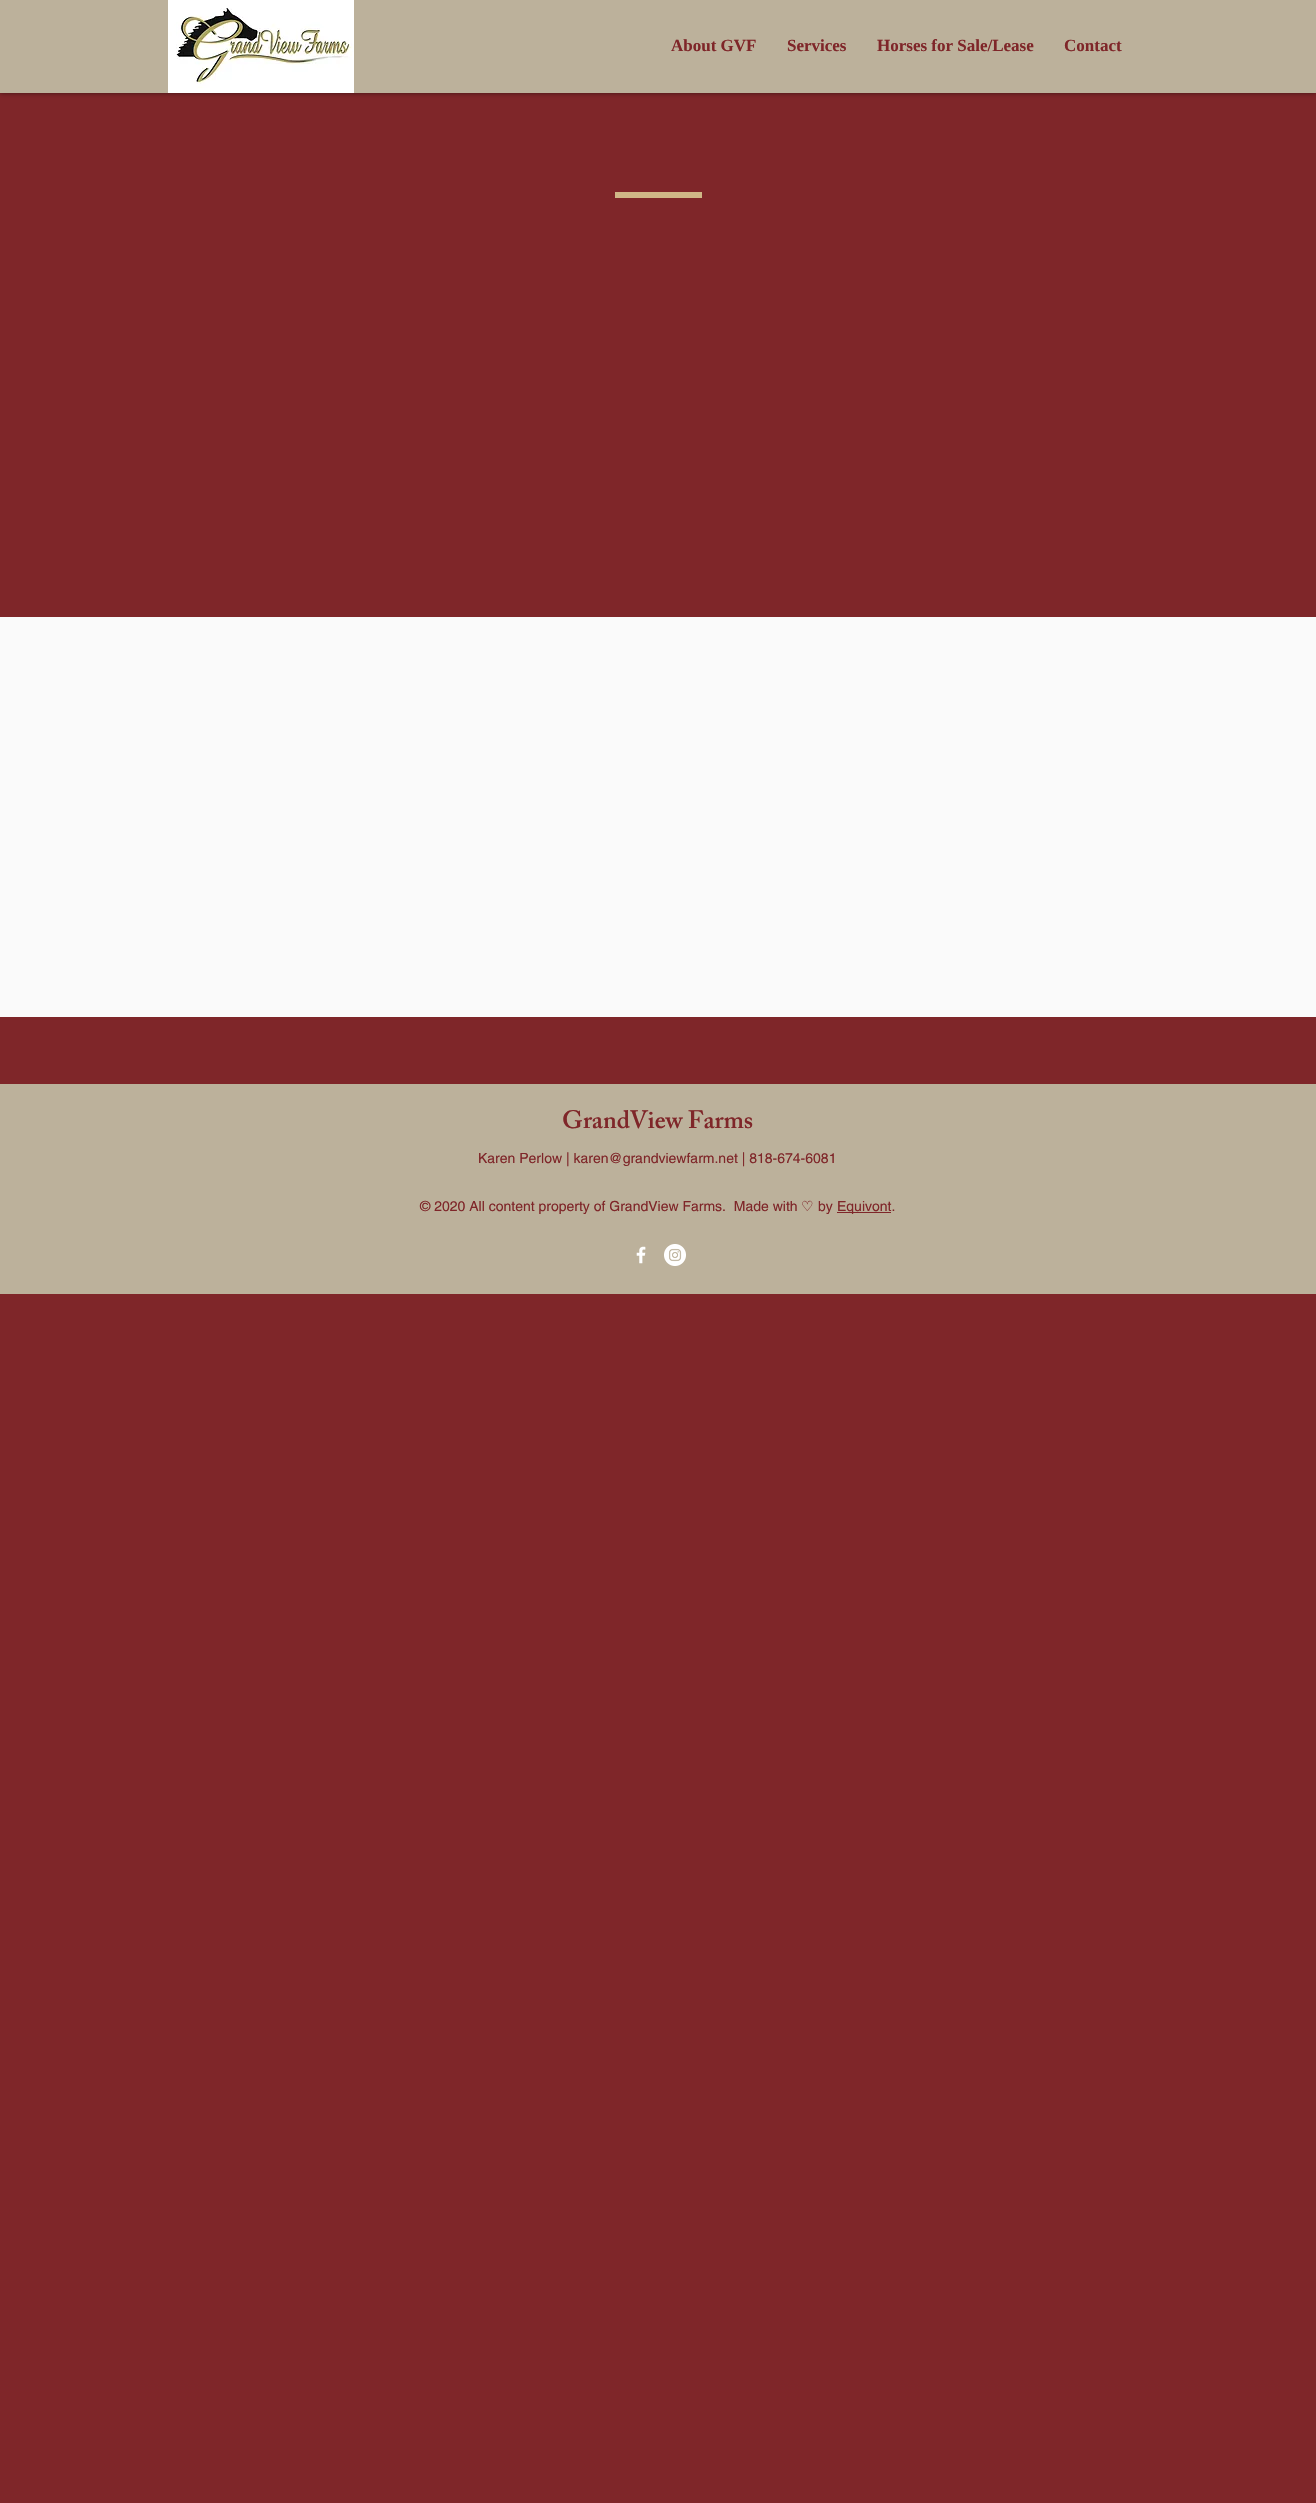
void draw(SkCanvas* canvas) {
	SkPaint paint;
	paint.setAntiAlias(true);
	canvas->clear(0xff7f2629);
	paint.setColor(0x80000000);
	paint.setMaskFilter(SkMaskFilter::MakeBlur(kNormal_SkBlurStyle, 2.5));
	canvas->drawRect(SkRect::MakeXYWH(0, 0, 1316, 93), paint);
	paint.setMaskFilter(nullptr);
	paint.setColor(0xffbcb19b);
	canvas->drawRect(SkRect::MakeXYWH(0, 0, 1316, 93), paint);
	canvas->drawImageRect(SkImages::DeferredFromEncodedData(SkData::MakeFromFileName("img1.png")), SkRect::MakeXYWH(168, 0, 186, 93), SkSamplingOptions());
	SkFont f1(fontMgr->matchFamilyStyle("Liberation Serif", SkFontStyle::Bold()), 17);
	f1.setSubpixel(true);
	paint.setColor(0xff7f2629);
	canvas->drawString("About GVF", 671, 51, f1, paint);
	canvas->drawString("Services", 787, 51, f1, paint);
	canvas->drawString("Horses for Sale/Lease", 877, 51, f1, paint);
	canvas->drawString("Contact", 1064, 51, f1, paint);
	paint.setColor(0xffd0b787);
	canvas->drawRect(SkRect::MakeXYWH(615, 192, 87, 6), paint);
	paint.setColor(0xfffafafa);
	canvas->drawRect(SkRect::MakeXYWH(0, 617, 1316, 400), paint);
	paint.setColor(0xffbcb19b);
	canvas->drawRect(SkRect::MakeXYWH(0, 1084, 1316, 210), paint);
	SkFont f2(fontMgr->matchFamilyStyle("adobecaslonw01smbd", SkFontStyle(600, SkFontStyle::kNormal_Width, SkFontStyle::kUpright_Slant)), 25);
	f2.setSubpixel(true);
	paint.setColor(0xff7f2629);
	canvas->drawString("GrandView Farms", 562, 1128, f2, paint);
	SkFont f3(fontMgr->matchFamilyStyle("helvetica", SkFontStyle::Normal()), 14);
	f3.setSubpixel(true);
	canvas->drawString("Karen Perlow | karen@grandviewfarm.net | 818-674-6081", 478, 1163, f3, paint);
	canvas->drawString("© 2020 All content property of GrandView Farms.  Made with", 420, 1211, f3, paint);
	SkFont f4(fontMgr->matchFamilyStyle("DejaVu Sans", SkFontStyle::Normal()), 14);
	f4.setSubpixel(true);
	canvas->drawString("♡", 801, 1211, f4, paint);
	canvas->drawString("by", 818, 1211, f3, paint);
	canvas->drawRect(SkRect::MakeXYWH(837, 1212, 54, 1), paint);
	canvas->drawString("Equivont.", 837, 1211, f3, paint);
	canvas->drawImageRect(SkImages::DeferredFromEncodedData(SkData::MakeFromFileName("img2.png")), SkRect::MakeXYWH(636, 1246, 10, 18), SkSamplingOptions());
	canvas->drawImageRect(SkImages::DeferredFromEncodedData(SkData::MakeFromFileName("img3.png")), SkRect::MakeXYWH(664, 1244, 22, 22), SkSamplingOptions());
}
